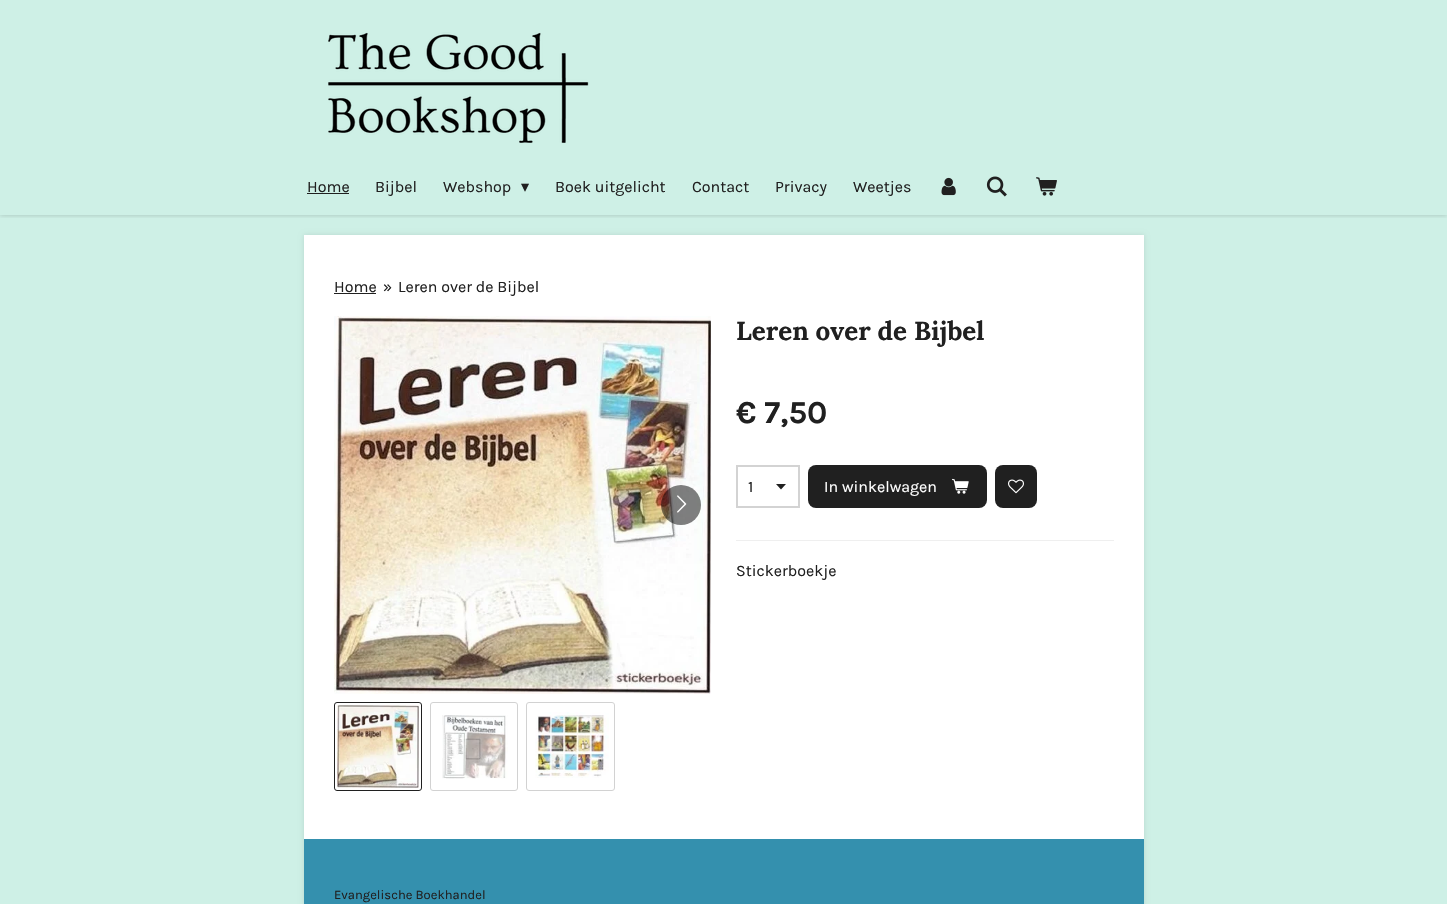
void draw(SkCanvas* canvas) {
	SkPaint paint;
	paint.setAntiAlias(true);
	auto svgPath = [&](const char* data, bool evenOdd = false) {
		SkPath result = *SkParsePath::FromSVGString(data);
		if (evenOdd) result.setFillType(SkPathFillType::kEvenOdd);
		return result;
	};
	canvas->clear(0xffcef0e6);
	canvas->save();
	canvas->clipRect(SkRect::MakeXYWH(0, 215, 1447, 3));
	paint.setColor(0x33000000);
	paint.setMaskFilter(SkMaskFilter::MakeBlur(kNormal_SkBlurStyle, 2.5));
	canvas->drawRect(SkRect::MakeXYWH(0, 0, 1447, 215), paint);
	paint.setMaskFilter(nullptr);
	canvas->restore();
	canvas->drawImageRect(SkImages::DeferredFromEncodedData(SkData::MakeFromFileName("img1.png")), SkRect::MakeXYWH(328, 32, 261, 111), SkSamplingOptions());
	SkFont f1(fontMgr->matchFamilyStyle("Karla", SkFontStyle::Normal()), 16);
	f1.setSubpixel(true);
	paint.setColor(0xff202020);
	canvas->drawString("Home", 307, 192, f1, paint);
	canvas->drawRect(SkRect::MakeXYWH(307, 193, 42, 1), paint);
	canvas->drawString("Bijbel", 375, 192, f1, paint);
	canvas->drawString("Webshop", 443, 192, f1, paint);
	SkFont f2(fontMgr->matchFamilyStyle("DejaVu Sans", SkFontStyle::Normal()), 16);
	f2.setSubpixel(true);
	canvas->drawString("▾", 521, 192, f2, paint);
	canvas->drawString("Boek uitgelicht", 555, 192, f1, paint);
	canvas->drawString("Contact", 692, 192, f1, paint);
	canvas->drawString("Privacy", 775, 192, f1, paint);
	canvas->drawString("Weetjes", 853, 192, f1, paint);
	canvas->drawImageRect(SkImages::DeferredFromEncodedData(SkData::MakeFromFileName("img2.png")), SkRect::MakeXYWH(941, 177, 15, 19), SkSamplingOptions());
	canvas->drawImageRect(SkImages::DeferredFromEncodedData(SkData::MakeFromFileName("img3.png")), SkRect::MakeXYWH(986, 176, 21, 21), SkSamplingOptions());
	canvas->drawImageRect(SkImages::DeferredFromEncodedData(SkData::MakeFromFileName("img4.png")), SkRect::MakeXYWH(1036, 177, 21, 19), SkSamplingOptions());
	paint.setColor(0x1a000000);
	paint.setMaskFilter(SkMaskFilter::MakeBlur(kNormal_SkBlurStyle, 2.5));
	canvas->drawRect(SkRect::MakeXYWH(304, 235, 840, 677), paint);
	paint.setMaskFilter(nullptr);
	paint.setColor(0xffffffff);
	canvas->drawRect(SkRect::MakeXYWH(304, 235, 840, 604), paint);
	paint.setColor(0xff202020);
	canvas->drawString("Home", 334, 292, f1, paint);
	canvas->drawRect(SkRect::MakeXYWH(334, 293, 42, 1), paint);
	canvas->drawString("»", 383, 292, f1, paint);
	canvas->drawString("Leren over de Bijbel", 398, 292, f1, paint);
	canvas->drawImageRect(SkImages::DeferredFromEncodedData(SkData::MakeFromFileName("img5.png")), SkRect::MakeXYWH(334, 316, 377, 378), SkSamplingOptions());
	paint.setColor(0x80000000);
	canvas->drawCircle(681, 505, 20, paint);
	canvas->drawImageRect(SkImages::DeferredFromEncodedData(SkData::MakeFromFileName("img6.png")), SkRect::MakeXYWH(677, 495, 10, 18), SkSamplingOptions());
	paint.setStroke(true);
	paint.setStrokeWidth(1);
	paint.setColor(0xff202020);
	canvas->drawRoundRect(SkRect::MakeXYWH(334.5, 702.5, 87, 88), 2.5, 2.5, paint);
	canvas->drawImageRect(SkImages::DeferredFromEncodedData(SkData::MakeFromFileName("img7.png")), SkRect::MakeXYWH(337, 705, 82, 83), SkSamplingOptions());
	paint.setColor(0xffd2d2d2);
	canvas->drawRoundRect(SkRect::MakeXYWH(430.5, 702.5, 87, 88), 2.5, 2.5, paint);
	canvas->drawImageRect(SkImages::DeferredFromEncodedData(SkData::MakeFromFileName("img8.png")), SkRect::MakeXYWH(442, 715, 66, 64), SkSamplingOptions());
	canvas->drawRoundRect(SkRect::MakeXYWH(526.5, 702.5, 88, 88), 2.5, 2.5, paint);
	canvas->drawImageRect(SkImages::DeferredFromEncodedData(SkData::MakeFromFileName("img9.png")), SkRect::MakeXYWH(535, 712, 74, 66), SkSamplingOptions());
	SkFont f3(fontMgr->matchFamilyStyle("Lora", SkFontStyle::Bold()), 26);
	f3.setSubpixel(true);
	paint.setStroke(false);
	paint.setColor(0xff202020);
	canvas->drawString("Leren over de Bijbel", 736, 340, f3, paint);
	SkFont f4(fontMgr->matchFamilyStyle("Karla", SkFontStyle::Bold()), 32);
	f4.setSubpixel(true);
	canvas->drawString("€ 7,50", 736, 423, f4, paint);
	canvas->drawPath(svgPath("M781 489.5L776 484H786Z"), paint);
	paint.setStroke(true);
	paint.setStrokeWidth(2);
	paint.setColor(0xffd3d3d3);
	canvas->drawRect(SkRect::MakeXYWH(737, 466, 62, 41), paint);
	paint.setStroke(false);
	paint.setColor(0xff202020);
	canvas->drawString("1", 748, 492, f1, paint);
	canvas->drawRoundRect(SkRect::MakeXYWH(808, 465, 179, 43), 8, 8, paint);
	paint.setColor(0xffffffff);
	canvas->drawString("In winkelwagen", 824, 492, f1, paint);
	canvas->drawImageRect(SkImages::DeferredFromEncodedData(SkData::MakeFromFileName("img10.png")), SkRect::MakeXYWH(952, 478, 17, 16), SkSamplingOptions());
	paint.setColor(0xff202020);
	canvas->drawRoundRect(SkRect::MakeXYWH(995, 465, 42, 43), 8, 8, paint);
	canvas->drawImageRect(SkImages::DeferredFromEncodedData(SkData::MakeFromFileName("img11.png")), SkRect::MakeXYWH(1008, 479, 16, 15), SkSamplingOptions());
	paint.setColor(0xffefefef);
	canvas->drawRect(SkRect::MakeXYWH(736, 540, 378, 1), paint);
	paint.setColor(0xff202020);
	canvas->drawString("Stickerboekje", 736, 576, f1, paint);
	paint.setColor(0xff3490ae);
	canvas->drawRect(SkRect::MakeXYWH(304, 839, 840, 65), paint);
	SkFont f5(fontMgr->matchFamilyStyle("Karla", SkFontStyle::Normal()), 13);
	f5.setSubpixel(true);
	paint.setColor(0xff202020);
	canvas->drawString("Evangelische Boekhandel", 334, 899, f5, paint);
}
